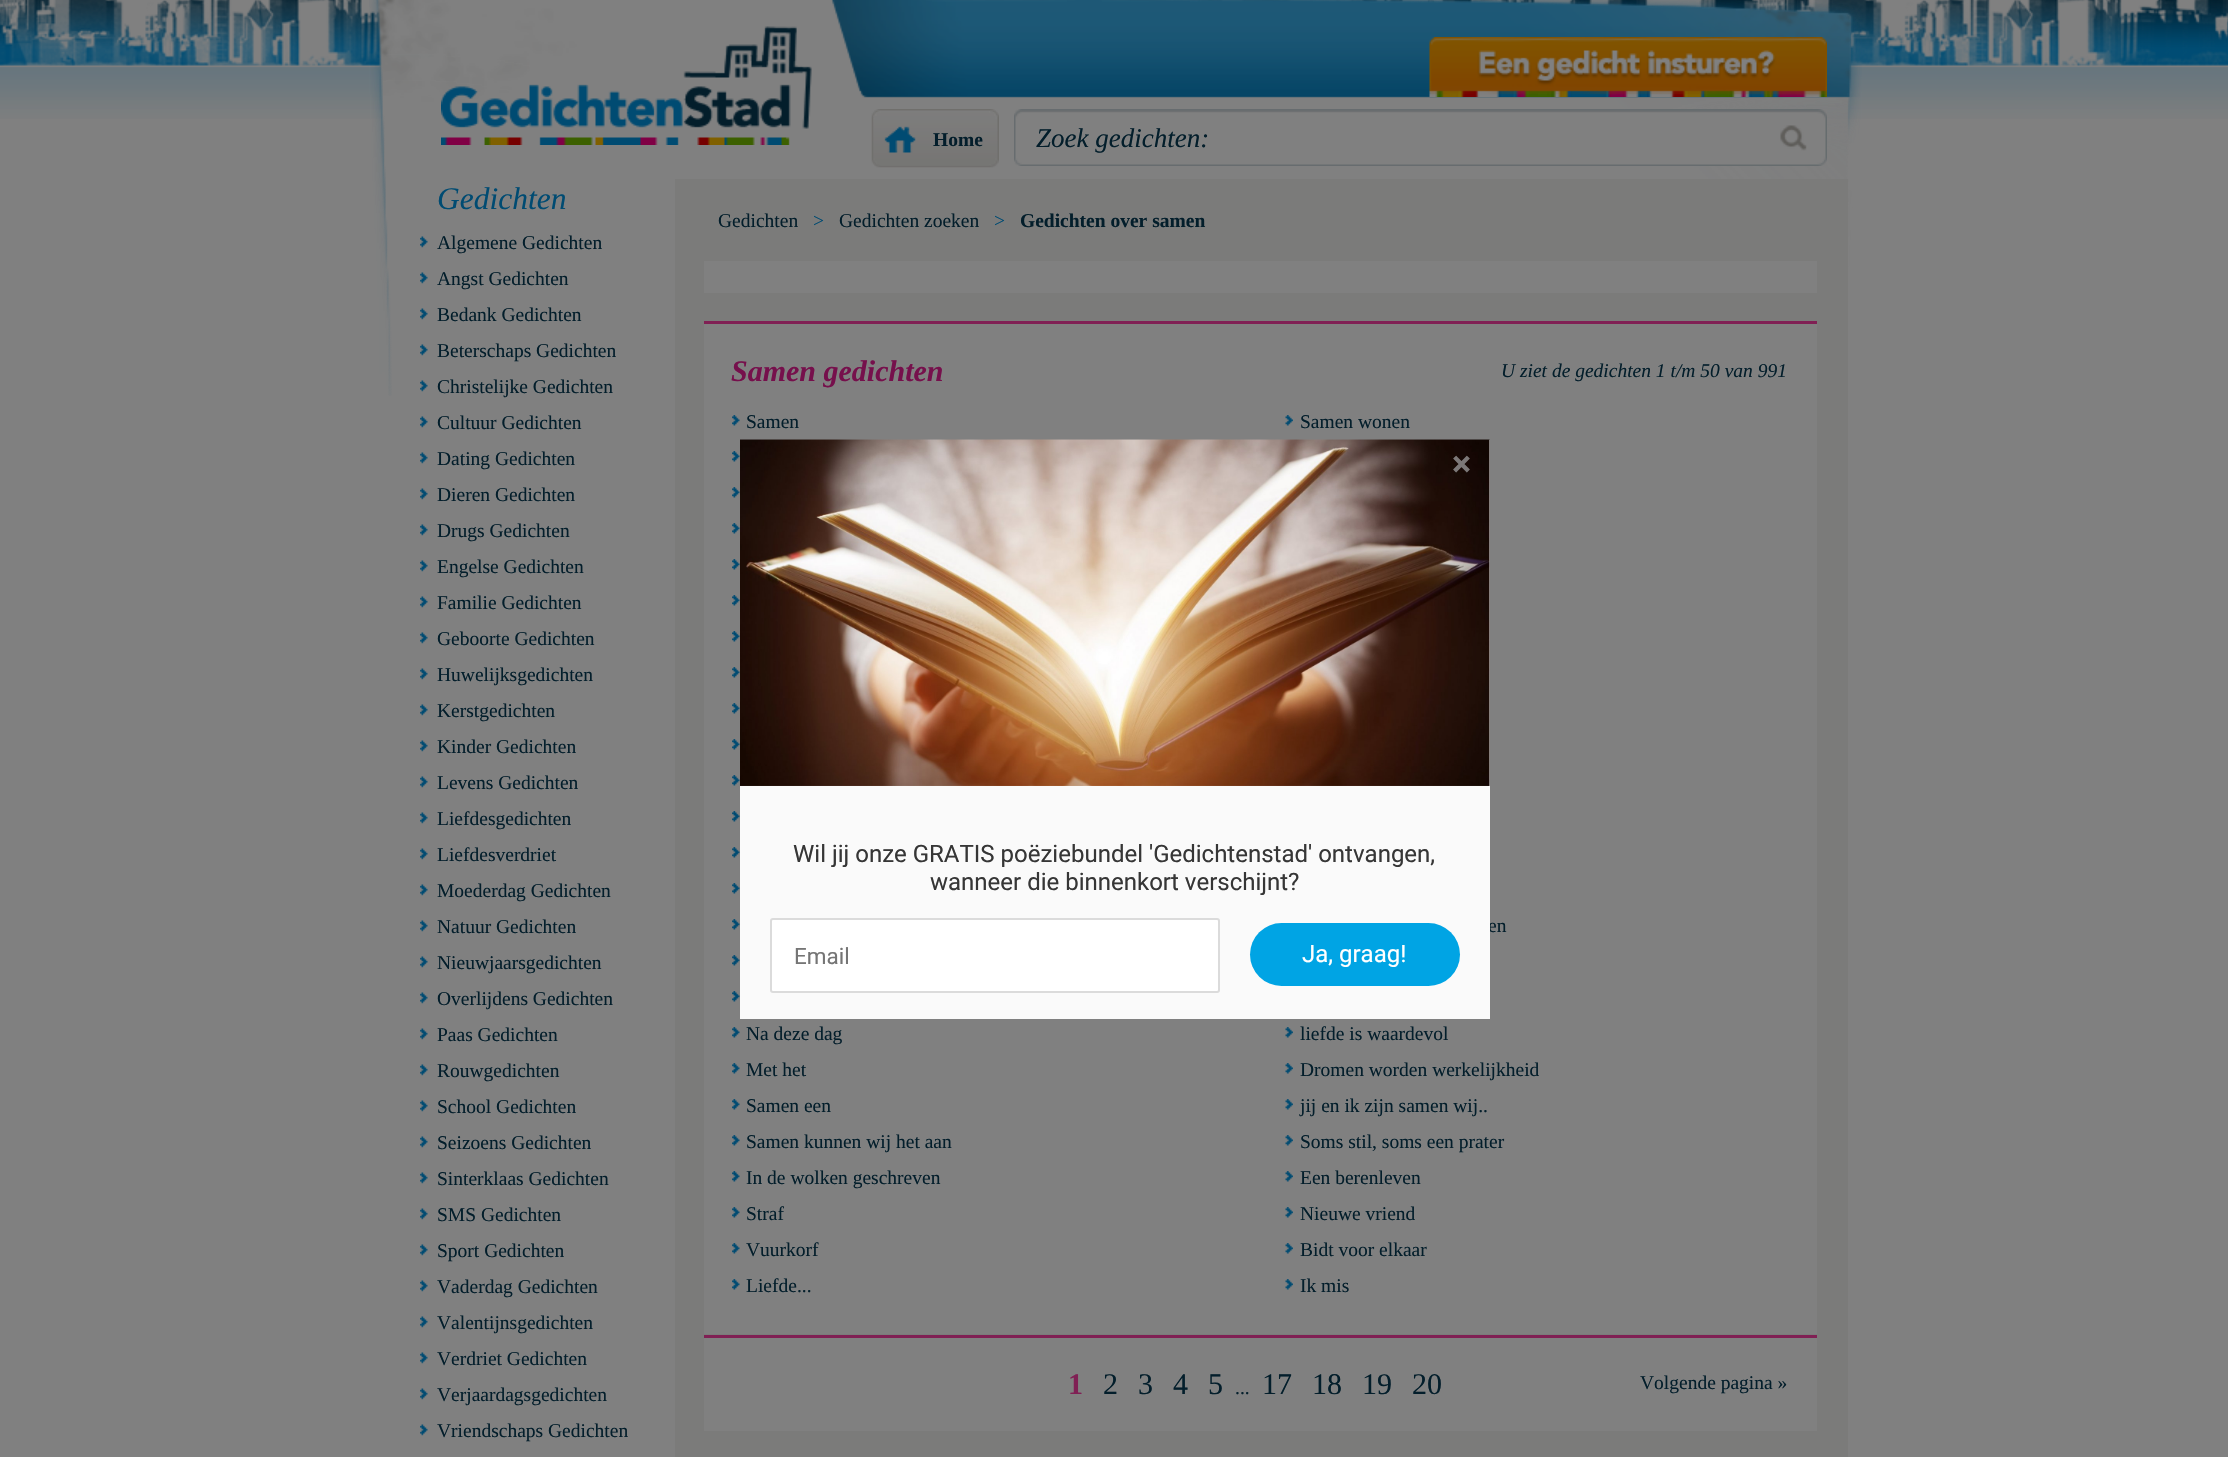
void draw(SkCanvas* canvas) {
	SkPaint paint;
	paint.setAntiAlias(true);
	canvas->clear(0xff808080);
	canvas->drawImageRect(SkImages::DeferredFromEncodedData(SkData::MakeFromFileName("img1.png")), SkRect::MakeXYWH(0, 0, 2228, 119), SkSamplingOptions());
	canvas->drawImageRect(SkImages::DeferredFromEncodedData(SkData::MakeFromFileName("img2.png")), SkRect::MakeXYWH(369, 0, 1493, 396), SkSamplingOptions());
	canvas->drawImageRect(SkImages::DeferredFromEncodedData(SkData::MakeFromFileName("img3.png")), SkRect::MakeXYWH(441, 26, 371, 119), SkSamplingOptions());
	canvas->drawImageRect(SkImages::DeferredFromEncodedData(SkData::MakeFromFileName("img4.png")), SkRect::MakeXYWH(1429, 37, 398, 60), SkSamplingOptions());
	canvas->drawImageRect(SkImages::DeferredFromEncodedData(SkData::MakeFromFileName("img5.png")), SkRect::MakeXYWH(871, 109, 128, 59), SkSamplingOptions());
	SkFont f1(fontMgr->matchFamilyStyle("Liberation Serif", SkFontStyle::Bold()), 19.5);
	f1.setSubpixel(true);
	paint.setColor(0xff031e2b);
	canvas->drawString("Home", 933, 146, f1, paint);
	canvas->drawImageRect(SkImages::DeferredFromEncodedData(SkData::MakeFromFileName("img6.png")), SkRect::MakeXYWH(1014, 109, 813, 57), SkSamplingOptions());
	SkFont f2(fontMgr->matchFamilyStyle("Liberation Serif", SkFontStyle::Italic()), 27);
	f2.setSubpixel(true);
	canvas->drawString("Zoek gedichten:", 1036, 147, f2, paint);
	canvas->drawImageRect(SkImages::DeferredFromEncodedData(SkData::MakeFromFileName("img7.png")), SkRect::MakeXYWH(1780, 125, 27, 26), SkSamplingOptions());
	paint.setColor(0xff7b7b7a);
	canvas->drawRect(SkRect::MakeXYWH(675, 179, 1173, 1278), paint);
	SkFont f3(fontMgr->matchFamilyStyle("Liberation Serif", SkFontStyle::Italic()), 31.5);
	f3.setSubpixel(true);
	paint.setColor(0xff004b72);
	canvas->drawString("Gedichten", 437, 209, f3, paint);
	canvas->drawImageRect(SkImages::DeferredFromEncodedData(SkData::MakeFromFileName("img8.png")), SkRect::MakeXYWH(420, 236, 8, 12), SkSamplingOptions());
	SkFont f4(fontMgr->matchFamilyStyle("Liberation Serif", SkFontStyle::Normal()), 19.5);
	f4.setSubpixel(true);
	paint.setColor(0xff031e2b);
	canvas->drawString("Algemene Gedichten", 437, 249, f4, paint);
	canvas->drawImageRect(SkImages::DeferredFromEncodedData(SkData::MakeFromFileName("img8.png")), SkRect::MakeXYWH(420, 272, 8, 12), SkSamplingOptions());
	canvas->drawString("Angst Gedichten", 437, 285, f4, paint);
	canvas->drawImageRect(SkImages::DeferredFromEncodedData(SkData::MakeFromFileName("img9.png")), SkRect::MakeXYWH(420, 308, 8, 12), SkSamplingOptions());
	canvas->drawString("Bedank Gedichten", 437, 321, f4, paint);
	canvas->drawImageRect(SkImages::DeferredFromEncodedData(SkData::MakeFromFileName("img10.png")), SkRect::MakeXYWH(420, 344, 8, 12), SkSamplingOptions());
	canvas->drawString("Beterschaps Gedichten", 437, 357, f4, paint);
	canvas->drawImageRect(SkImages::DeferredFromEncodedData(SkData::MakeFromFileName("img8.png")), SkRect::MakeXYWH(420, 380, 8, 12), SkSamplingOptions());
	canvas->drawString("Christelijke Gedichten", 437, 393, f4, paint);
	canvas->drawImageRect(SkImages::DeferredFromEncodedData(SkData::MakeFromFileName("img8.png")), SkRect::MakeXYWH(420, 416, 8, 12), SkSamplingOptions());
	canvas->drawString("Cultuur Gedichten", 437, 429, f4, paint);
	canvas->drawImageRect(SkImages::DeferredFromEncodedData(SkData::MakeFromFileName("img8.png")), SkRect::MakeXYWH(420, 452, 8, 12), SkSamplingOptions());
	canvas->drawString("Dating Gedichten", 437, 465, f4, paint);
	canvas->drawImageRect(SkImages::DeferredFromEncodedData(SkData::MakeFromFileName("img8.png")), SkRect::MakeXYWH(420, 488, 8, 12), SkSamplingOptions());
	canvas->drawString("Dieren Gedichten", 437, 501, f4, paint);
	canvas->drawImageRect(SkImages::DeferredFromEncodedData(SkData::MakeFromFileName("img8.png")), SkRect::MakeXYWH(420, 524, 8, 12), SkSamplingOptions());
	canvas->drawString("Drugs Gedichten", 437, 537, f4, paint);
	canvas->drawImageRect(SkImages::DeferredFromEncodedData(SkData::MakeFromFileName("img8.png")), SkRect::MakeXYWH(420, 560, 8, 12), SkSamplingOptions());
	canvas->drawString("Engelse Gedichten", 437, 573, f4, paint);
	canvas->drawImageRect(SkImages::DeferredFromEncodedData(SkData::MakeFromFileName("img8.png")), SkRect::MakeXYWH(420, 596, 8, 12), SkSamplingOptions());
	canvas->drawString("Familie Gedichten", 437, 609, f4, paint);
	canvas->drawImageRect(SkImages::DeferredFromEncodedData(SkData::MakeFromFileName("img8.png")), SkRect::MakeXYWH(420, 632, 8, 12), SkSamplingOptions());
	canvas->drawString("Geboorte Gedichten", 437, 645, f4, paint);
	canvas->drawImageRect(SkImages::DeferredFromEncodedData(SkData::MakeFromFileName("img8.png")), SkRect::MakeXYWH(420, 668, 8, 12), SkSamplingOptions());
	canvas->drawString("Huwelijksgedichten", 437, 681, f4, paint);
	canvas->drawImageRect(SkImages::DeferredFromEncodedData(SkData::MakeFromFileName("img8.png")), SkRect::MakeXYWH(420, 704, 8, 12), SkSamplingOptions());
	canvas->drawString("Kerstgedichten", 437, 717, f4, paint);
	canvas->drawImageRect(SkImages::DeferredFromEncodedData(SkData::MakeFromFileName("img8.png")), SkRect::MakeXYWH(420, 740, 8, 12), SkSamplingOptions());
	canvas->drawString("Kinder Gedichten", 437, 753, f4, paint);
	canvas->drawImageRect(SkImages::DeferredFromEncodedData(SkData::MakeFromFileName("img8.png")), SkRect::MakeXYWH(420, 776, 8, 12), SkSamplingOptions());
	canvas->drawString("Levens Gedichten", 437, 789, f4, paint);
	canvas->drawImageRect(SkImages::DeferredFromEncodedData(SkData::MakeFromFileName("img8.png")), SkRect::MakeXYWH(420, 812, 8, 12), SkSamplingOptions());
	canvas->drawString("Liefdesgedichten", 437, 825, f4, paint);
	canvas->drawImageRect(SkImages::DeferredFromEncodedData(SkData::MakeFromFileName("img8.png")), SkRect::MakeXYWH(420, 848, 8, 12), SkSamplingOptions());
	canvas->drawString("Liefdesverdriet", 437, 861, f4, paint);
	canvas->drawImageRect(SkImages::DeferredFromEncodedData(SkData::MakeFromFileName("img8.png")), SkRect::MakeXYWH(420, 884, 8, 12), SkSamplingOptions());
	canvas->drawString("Moederdag Gedichten", 437, 897, f4, paint);
	canvas->drawImageRect(SkImages::DeferredFromEncodedData(SkData::MakeFromFileName("img8.png")), SkRect::MakeXYWH(420, 920, 8, 12), SkSamplingOptions());
	canvas->drawString("Natuur Gedichten", 437, 933, f4, paint);
	canvas->drawImageRect(SkImages::DeferredFromEncodedData(SkData::MakeFromFileName("img8.png")), SkRect::MakeXYWH(420, 956, 8, 12), SkSamplingOptions());
	canvas->drawString("Nieuwjaarsgedichten", 437, 969, f4, paint);
	canvas->drawImageRect(SkImages::DeferredFromEncodedData(SkData::MakeFromFileName("img8.png")), SkRect::MakeXYWH(420, 992, 8, 12), SkSamplingOptions());
	canvas->drawString("Overlijdens Gedichten", 437, 1005, f4, paint);
	canvas->drawImageRect(SkImages::DeferredFromEncodedData(SkData::MakeFromFileName("img8.png")), SkRect::MakeXYWH(420, 1028, 8, 12), SkSamplingOptions());
	canvas->drawString("Paas Gedichten", 437, 1041, f4, paint);
	canvas->drawImageRect(SkImages::DeferredFromEncodedData(SkData::MakeFromFileName("img8.png")), SkRect::MakeXYWH(420, 1064, 8, 12), SkSamplingOptions());
	canvas->drawString("Rouwgedichten", 437, 1077, f4, paint);
	canvas->drawImageRect(SkImages::DeferredFromEncodedData(SkData::MakeFromFileName("img8.png")), SkRect::MakeXYWH(420, 1100, 8, 12), SkSamplingOptions());
	canvas->drawString("School Gedichten", 437, 1113, f4, paint);
	canvas->drawImageRect(SkImages::DeferredFromEncodedData(SkData::MakeFromFileName("img8.png")), SkRect::MakeXYWH(420, 1136, 8, 12), SkSamplingOptions());
	canvas->drawString("Seizoens Gedichten", 437, 1149, f4, paint);
	canvas->drawImageRect(SkImages::DeferredFromEncodedData(SkData::MakeFromFileName("img8.png")), SkRect::MakeXYWH(420, 1172, 8, 12), SkSamplingOptions());
	canvas->drawString("Sinterklaas Gedichten", 437, 1185, f4, paint);
	canvas->drawImageRect(SkImages::DeferredFromEncodedData(SkData::MakeFromFileName("img8.png")), SkRect::MakeXYWH(420, 1208, 8, 12), SkSamplingOptions());
	canvas->drawString("SMS Gedichten", 437, 1221, f4, paint);
	canvas->drawImageRect(SkImages::DeferredFromEncodedData(SkData::MakeFromFileName("img8.png")), SkRect::MakeXYWH(420, 1244, 8, 12), SkSamplingOptions());
	canvas->drawString("Sport Gedichten", 437, 1257, f4, paint);
	canvas->drawImageRect(SkImages::DeferredFromEncodedData(SkData::MakeFromFileName("img8.png")), SkRect::MakeXYWH(420, 1280, 8, 12), SkSamplingOptions());
	canvas->drawString("Vaderdag Gedichten", 437, 1293, f4, paint);
	canvas->drawImageRect(SkImages::DeferredFromEncodedData(SkData::MakeFromFileName("img8.png")), SkRect::MakeXYWH(420, 1316, 8, 12), SkSamplingOptions());
	canvas->drawString("Valentijnsgedichten", 437, 1329, f4, paint);
	canvas->drawImageRect(SkImages::DeferredFromEncodedData(SkData::MakeFromFileName("img8.png")), SkRect::MakeXYWH(420, 1352, 8, 12), SkSamplingOptions());
	canvas->drawString("Verdriet Gedichten", 437, 1365, f4, paint);
	canvas->drawImageRect(SkImages::DeferredFromEncodedData(SkData::MakeFromFileName("img8.png")), SkRect::MakeXYWH(420, 1388, 8, 12), SkSamplingOptions());
	canvas->drawString("Verjaardagsgedichten", 437, 1401, f4, paint);
	canvas->drawImageRect(SkImages::DeferredFromEncodedData(SkData::MakeFromFileName("img8.png")), SkRect::MakeXYWH(420, 1424, 8, 12), SkSamplingOptions());
	canvas->drawString("Vriendschaps Gedichten", 437, 1437, f4, paint);
	canvas->drawString("Gedichten", 718, 227, f4, paint);
	paint.setColor(0xff004b72);
	canvas->drawString(">", 813, 227, f4, paint);
	paint.setColor(0xff031e2b);
	canvas->drawString("Gedichten zoeken", 839, 227, f4, paint);
	paint.setColor(0xff004b72);
	canvas->drawString(">", 994, 227, f4, paint);
	paint.setColor(0xff031e2b);
	canvas->drawString("Gedichten over samen", 1020, 227, f1, paint);
	paint.setColor(0xff808080);
	canvas->drawRect(SkRect::MakeXYWH(704, 261, 1113, 32), paint);
	canvas->drawRect(SkRect::MakeXYWH(704, 324, 1113, 1010), paint);
	paint.setColor(0xff802054);
	canvas->drawRect(SkRect::MakeXYWH(704, 321, 1113, 3), paint);
	SkFont f5(fontMgr->matchFamilyStyle("Liberation Serif", SkFontStyle::BoldItalic()), 30);
	f5.setSubpixel(true);
	paint.setColor(0xff76104c);
	canvas->drawString("Samen gedichten", 731, 381, f5, paint);
	SkFont f6(fontMgr->matchFamilyStyle("Liberation Serif", SkFontStyle::Italic()), 19.5);
	f6.setSubpixel(true);
	paint.setColor(0xff031e2b);
	canvas->drawString("U ziet de gedichten 1 t/m 50 van 991", 1501, 377, f6, paint);
	canvas->drawImageRect(SkImages::DeferredFromEncodedData(SkData::MakeFromFileName("img11.png")), SkRect::MakeXYWH(732, 415, 8, 11), SkSamplingOptions());
	canvas->drawString("Samen", 746, 428, f4, paint);
	canvas->drawImageRect(SkImages::DeferredFromEncodedData(SkData::MakeFromFileName("img11.png")), SkRect::MakeXYWH(732, 451, 8, 11), SkSamplingOptions());
	canvas->drawImageRect(SkImages::DeferredFromEncodedData(SkData::MakeFromFileName("img11.png")), SkRect::MakeXYWH(732, 487, 8, 11), SkSamplingOptions());
	canvas->drawImageRect(SkImages::DeferredFromEncodedData(SkData::MakeFromFileName("img11.png")), SkRect::MakeXYWH(732, 523, 8, 11), SkSamplingOptions());
	canvas->drawImageRect(SkImages::DeferredFromEncodedData(SkData::MakeFromFileName("img11.png")), SkRect::MakeXYWH(732, 559, 8, 11), SkSamplingOptions());
	canvas->drawImageRect(SkImages::DeferredFromEncodedData(SkData::MakeFromFileName("img11.png")), SkRect::MakeXYWH(732, 595, 8, 11), SkSamplingOptions());
	canvas->drawImageRect(SkImages::DeferredFromEncodedData(SkData::MakeFromFileName("img11.png")), SkRect::MakeXYWH(732, 631, 8, 11), SkSamplingOptions());
	canvas->drawImageRect(SkImages::DeferredFromEncodedData(SkData::MakeFromFileName("img11.png")), SkRect::MakeXYWH(732, 667, 8, 11), SkSamplingOptions());
	canvas->drawImageRect(SkImages::DeferredFromEncodedData(SkData::MakeFromFileName("img11.png")), SkRect::MakeXYWH(732, 703, 8, 11), SkSamplingOptions());
	canvas->drawImageRect(SkImages::DeferredFromEncodedData(SkData::MakeFromFileName("img11.png")), SkRect::MakeXYWH(732, 739, 8, 11), SkSamplingOptions());
	canvas->drawImageRect(SkImages::DeferredFromEncodedData(SkData::MakeFromFileName("img11.png")), SkRect::MakeXYWH(732, 775, 8, 11), SkSamplingOptions());
	canvas->drawImageRect(SkImages::DeferredFromEncodedData(SkData::MakeFromFileName("img11.png")), SkRect::MakeXYWH(732, 811, 8, 11), SkSamplingOptions());
	canvas->drawImageRect(SkImages::DeferredFromEncodedData(SkData::MakeFromFileName("img11.png")), SkRect::MakeXYWH(732, 847, 8, 11), SkSamplingOptions());
	canvas->drawImageRect(SkImages::DeferredFromEncodedData(SkData::MakeFromFileName("img11.png")), SkRect::MakeXYWH(732, 883, 8, 11), SkSamplingOptions());
	canvas->drawImageRect(SkImages::DeferredFromEncodedData(SkData::MakeFromFileName("img11.png")), SkRect::MakeXYWH(732, 919, 8, 11), SkSamplingOptions());
	canvas->drawImageRect(SkImages::DeferredFromEncodedData(SkData::MakeFromFileName("img11.png")), SkRect::MakeXYWH(732, 955, 8, 11), SkSamplingOptions());
	canvas->drawImageRect(SkImages::DeferredFromEncodedData(SkData::MakeFromFileName("img11.png")), SkRect::MakeXYWH(732, 991, 8, 11), SkSamplingOptions());
	canvas->drawImageRect(SkImages::DeferredFromEncodedData(SkData::MakeFromFileName("img11.png")), SkRect::MakeXYWH(732, 1027, 8, 11), SkSamplingOptions());
	canvas->drawString("Na deze dag", 746, 1040, f4, paint);
	canvas->drawImageRect(SkImages::DeferredFromEncodedData(SkData::MakeFromFileName("img11.png")), SkRect::MakeXYWH(732, 1063, 8, 11), SkSamplingOptions());
	canvas->drawString("Met het", 746, 1076, f4, paint);
	canvas->drawImageRect(SkImages::DeferredFromEncodedData(SkData::MakeFromFileName("img11.png")), SkRect::MakeXYWH(732, 1099, 8, 11), SkSamplingOptions());
	canvas->drawString("Samen een", 746, 1112, f4, paint);
	canvas->drawImageRect(SkImages::DeferredFromEncodedData(SkData::MakeFromFileName("img11.png")), SkRect::MakeXYWH(732, 1135, 8, 11), SkSamplingOptions());
	canvas->drawString("Samen kunnen wij het aan", 746, 1148, f4, paint);
	canvas->drawImageRect(SkImages::DeferredFromEncodedData(SkData::MakeFromFileName("img11.png")), SkRect::MakeXYWH(732, 1171, 8, 11), SkSamplingOptions());
	canvas->drawString("In de wolken geschreven", 746, 1184, f4, paint);
	canvas->drawImageRect(SkImages::DeferredFromEncodedData(SkData::MakeFromFileName("img11.png")), SkRect::MakeXYWH(732, 1207, 8, 11), SkSamplingOptions());
	canvas->drawString("Straf", 746, 1220, f4, paint);
	canvas->drawImageRect(SkImages::DeferredFromEncodedData(SkData::MakeFromFileName("img11.png")), SkRect::MakeXYWH(732, 1243, 8, 11), SkSamplingOptions());
	canvas->drawString("Vuurkorf", 746, 1256, f4, paint);
	canvas->drawImageRect(SkImages::DeferredFromEncodedData(SkData::MakeFromFileName("img11.png")), SkRect::MakeXYWH(732, 1279, 8, 11), SkSamplingOptions());
	canvas->drawString("Liefde...", 746, 1292, f4, paint);
	canvas->drawImageRect(SkImages::DeferredFromEncodedData(SkData::MakeFromFileName("img12.png")), SkRect::MakeXYWH(1285, 415, 8, 11), SkSamplingOptions());
	canvas->drawString("Samen wonen", 1300, 428, f4, paint);
	canvas->drawString("en", 1488, 932, f4, paint);
	canvas->drawImageRect(SkImages::DeferredFromEncodedData(SkData::MakeFromFileName("img12.png")), SkRect::MakeXYWH(1285, 1027, 8, 11), SkSamplingOptions());
	canvas->drawString("liefde is waardevol", 1300, 1040, f4, paint);
	canvas->drawImageRect(SkImages::DeferredFromEncodedData(SkData::MakeFromFileName("img12.png")), SkRect::MakeXYWH(1285, 1063, 8, 11), SkSamplingOptions());
	canvas->drawString("Dromen worden werkelijkheid", 1300, 1076, f4, paint);
	canvas->drawImageRect(SkImages::DeferredFromEncodedData(SkData::MakeFromFileName("img12.png")), SkRect::MakeXYWH(1285, 1099, 8, 11), SkSamplingOptions());
	canvas->drawString("jij en ik zijn samen wij..", 1300, 1112, f4, paint);
	canvas->drawImageRect(SkImages::DeferredFromEncodedData(SkData::MakeFromFileName("img12.png")), SkRect::MakeXYWH(1285, 1135, 8, 11), SkSamplingOptions());
	canvas->drawString("Soms stil, soms een prater", 1300, 1148, f4, paint);
	canvas->drawImageRect(SkImages::DeferredFromEncodedData(SkData::MakeFromFileName("img12.png")), SkRect::MakeXYWH(1285, 1171, 8, 11), SkSamplingOptions());
	canvas->drawString("Een berenleven", 1300, 1184, f4, paint);
	canvas->drawImageRect(SkImages::DeferredFromEncodedData(SkData::MakeFromFileName("img12.png")), SkRect::MakeXYWH(1285, 1207, 8, 11), SkSamplingOptions());
	canvas->drawString("Nieuwe vriend", 1300, 1220, f4, paint);
	canvas->drawImageRect(SkImages::DeferredFromEncodedData(SkData::MakeFromFileName("img12.png")), SkRect::MakeXYWH(1285, 1243, 8, 11), SkSamplingOptions());
	canvas->drawString("Bidt voor elkaar", 1300, 1256, f4, paint);
	canvas->drawImageRect(SkImages::DeferredFromEncodedData(SkData::MakeFromFileName("img12.png")), SkRect::MakeXYWH(1285, 1279, 8, 11), SkSamplingOptions());
	canvas->drawString("Ik mis", 1300, 1292, f4, paint);
	paint.setColor(0xff808080);
	canvas->drawRect(SkRect::MakeXYWH(704, 1338, 1113, 93), paint);
	paint.setColor(0xff802054);
	canvas->drawRect(SkRect::MakeXYWH(704, 1335, 1113, 3), paint);
	SkFont f7(fontMgr->matchFamilyStyle("Liberation Serif", SkFontStyle::Bold()), 30);
	f7.setSubpixel(true);
	canvas->drawString("1", 1068, 1394, f7, paint);
	SkFont f8(fontMgr->matchFamilyStyle("Liberation Serif", SkFontStyle::Normal()), 30);
	f8.setSubpixel(true);
	paint.setColor(0xff031e2b);
	canvas->drawString("2", 1103, 1394, f8, paint);
	canvas->drawString("3", 1138, 1394, f8, paint);
	canvas->drawString("4", 1173, 1394, f8, paint);
	canvas->drawString("5", 1208, 1394, f8, paint);
	canvas->drawString("...", 1235, 1394, f4, paint);
	canvas->drawString("17", 1262, 1394, f8, paint);
	canvas->drawString("18", 1312, 1394, f8, paint);
	canvas->drawString("19", 1362, 1394, f8, paint);
	canvas->drawString("20", 1412, 1394, f8, paint);
	canvas->drawString("Volgende pagina »", 1640, 1389, f4, paint);
	paint.setColor(0xfffafafa);
	canvas->drawRect(SkRect::MakeXYWH(740, 440, 750, 579), paint);
	canvas->drawImageRect(SkImages::DeferredFromEncodedData(SkData::MakeFromFileName("img13.png")), SkRect::MakeXYWH(740, 439, 750, 347), SkSamplingOptions());
	SkFont f9(fontMgr->matchFamilyStyle("Roboto", SkFontStyle::Bold()), 36);
	f9.setSubpixel(true);
	paint.setColor(0xff7c7878);
	canvas->drawString("×", 1452, 476, f9, paint);
	SkFont f10(fontMgr->matchFamilyStyle("Roboto", SkFontStyle::Normal()), 24);
	f10.setSubpixel(true);
	paint.setColor(0xff363636);
	canvas->drawString("Wil jij onze GRATIS poëziebundel 'Gedichtenstad' ontvangen,", 793, 862, f10, paint);
	canvas->drawString("wanneer die binnenkort verschijnt?", 930, 890, f10, paint);
	paint.setColor(0xffffffff);
	canvas->drawRoundRect(SkRect::MakeXYWH(771, 919, 448, 73), 2, 2, paint);
	paint.setStroke(true);
	paint.setStrokeWidth(2);
	paint.setColor(0xffdbdbdb);
	canvas->drawRoundRect(SkRect::MakeXYWH(771, 919, 448, 73), 2, 2, paint);
	SkFont f11(fontMgr->matchFamilyStyle("Roboto", SkFontStyle::Normal()), 22.5);
	f11.setSubpixel(true);
	paint.setStroke(false);
	paint.setColor(0xff757575);
	canvas->drawString("Email", 794, 964, f11, paint);
	paint.setColor(0xff00a4e4);
	canvas->drawRoundRect(SkRect::MakeXYWH(1250, 923, 210, 63), 31.5, 31.5, paint);
	paint.setColor(0xffffffff);
	canvas->drawString("Ja, graag!", 1302, 962, f10, paint);
}
